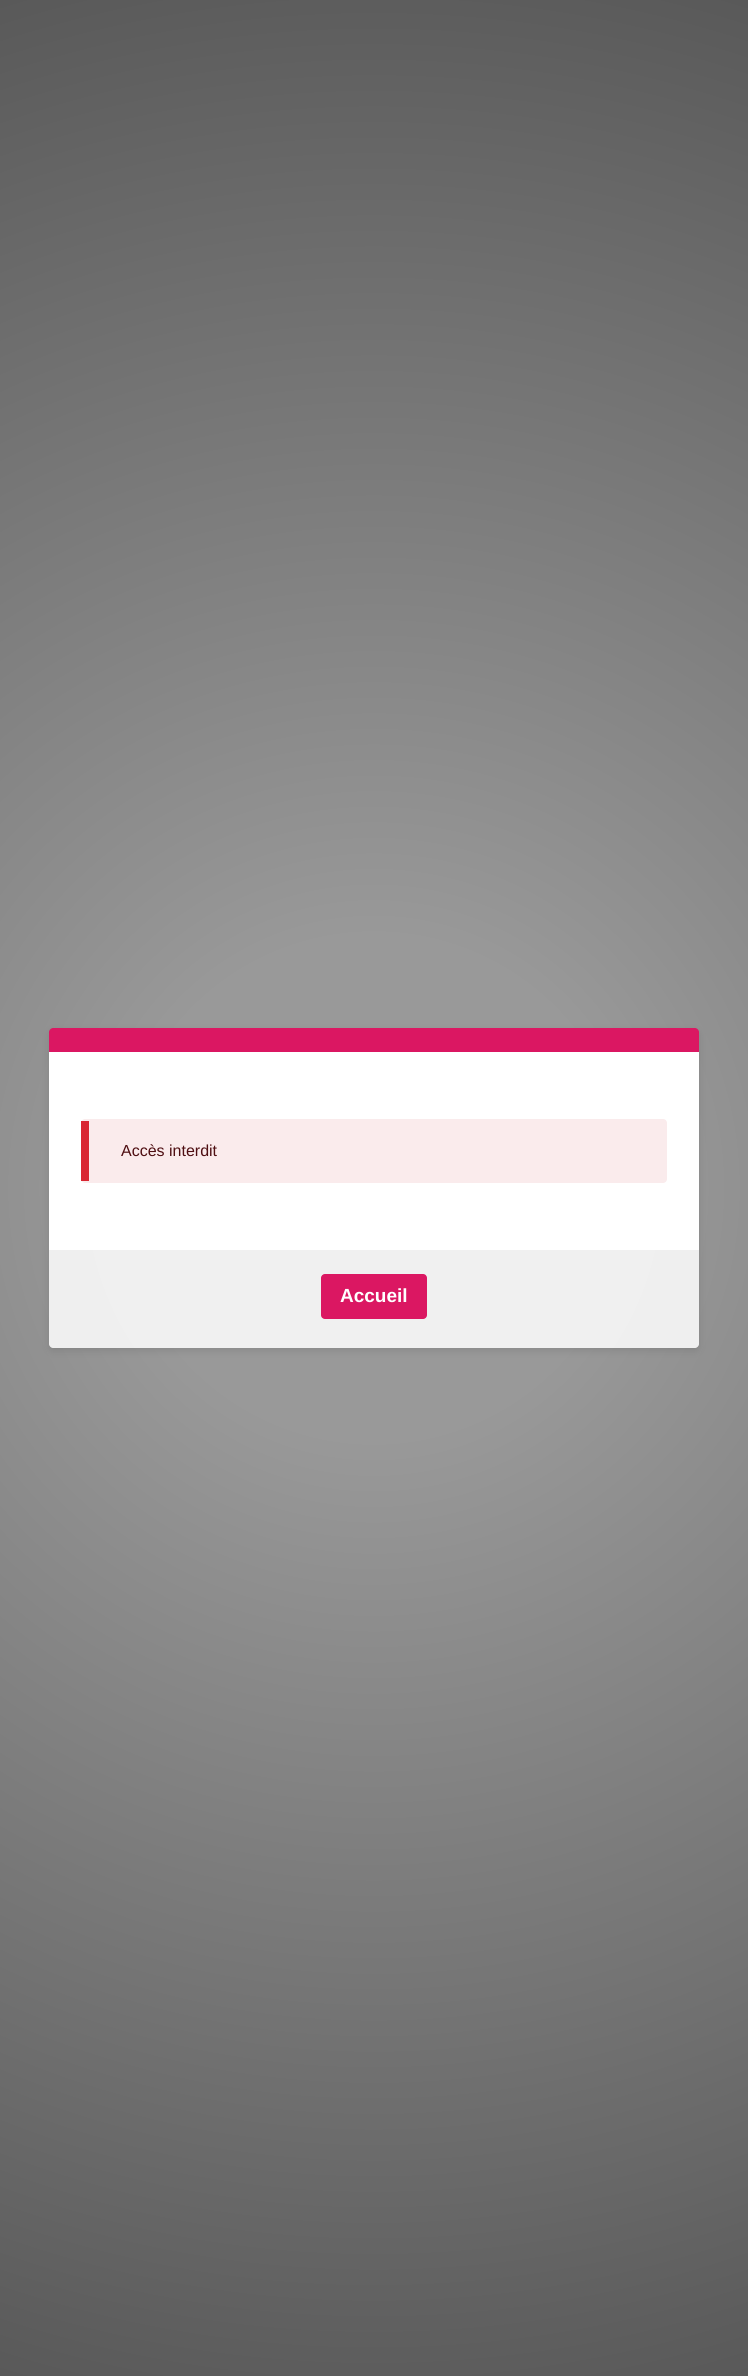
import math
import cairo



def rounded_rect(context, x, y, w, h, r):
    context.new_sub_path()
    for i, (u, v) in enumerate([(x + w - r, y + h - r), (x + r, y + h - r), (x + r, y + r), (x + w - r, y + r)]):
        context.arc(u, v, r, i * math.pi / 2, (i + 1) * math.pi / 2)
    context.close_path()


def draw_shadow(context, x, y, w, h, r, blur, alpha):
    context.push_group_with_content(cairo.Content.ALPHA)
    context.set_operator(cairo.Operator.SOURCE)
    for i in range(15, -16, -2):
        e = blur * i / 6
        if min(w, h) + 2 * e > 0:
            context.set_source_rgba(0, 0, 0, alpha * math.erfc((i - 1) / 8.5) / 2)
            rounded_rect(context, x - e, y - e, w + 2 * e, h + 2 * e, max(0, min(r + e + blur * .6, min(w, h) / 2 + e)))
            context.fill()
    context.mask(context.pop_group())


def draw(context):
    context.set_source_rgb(1, 1, 1)
    context.paint()
    gradient = cairo.RadialGradient(374, 1188, 0, 374, 1188, 1245)
    gradient.add_color_stop_rgba(0.2, 153 / 255, 153 / 255, 153 / 255, 1)
    gradient.add_color_stop_rgba(1, 89 / 255, 89 / 255, 89 / 255, 1)
    context.set_source(gradient)
    context.rectangle(0, 0, 748, 2376)
    context.fill()
    context.save()
    context.set_fill_rule(cairo.FillRule.EVEN_ODD)
    context.new_path()
    context.move_to(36, 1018)
    context.line_to(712, 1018)
    context.line_to(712, 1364)
    context.line_to(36, 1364)
    context.close_path()
    context.move_to(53, 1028)
    context.line_to(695, 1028)
    context.curve_to(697, 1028, 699, 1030, 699, 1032)
    context.line_to(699, 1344)
    context.curve_to(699, 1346, 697, 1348, 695, 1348)
    context.line_to(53, 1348)
    context.curve_to(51, 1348, 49, 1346, 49, 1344)
    context.line_to(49, 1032)
    context.curve_to(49, 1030, 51, 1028, 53, 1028)
    context.close_path()
    context.clip()
    context.set_source_rgb(0, 0, 0)
    draw_shadow(context, 49, 1031, 650, 320, 4, 4, 0.1)
    context.restore()
    context.set_source_rgb(219 / 255, 23 / 255, 98 / 255)
    context.new_path()
    context.move_to(53, 1028)
    context.line_to(695, 1028)
    context.curve_to(697, 1028, 699, 1030, 699, 1032)
    context.line_to(699, 1052)
    context.line_to(49, 1052)
    context.line_to(49, 1032)
    context.curve_to(49, 1030, 51, 1028, 53, 1028)
    context.close_path()
    context.fill()
    context.set_source_rgb(1, 1, 1)
    context.rectangle(49, 1052, 650, 198)
    context.fill()
    context.set_source_rgb(250 / 255, 235 / 255, 236 / 255)
    rounded_rect(context, 81, 1119, 586, 64, 4)
    context.fill()
    context.set_source_rgb(217 / 255, 38 / 255, 50 / 255)
    context.rectangle(81, 1121, 8, 60)
    context.fill()
    context.set_source_rgba(1, 1, 1, 0.85)
    context.new_path()
    context.move_to(49, 1250)
    context.line_to(699, 1250)
    context.line_to(699, 1344)
    context.curve_to(699, 1346, 697, 1348, 695, 1348)
    context.line_to(53, 1348)
    context.curve_to(51, 1348, 49, 1346, 49, 1344)
    context.close_path()
    context.fill()
    context.set_source_rgb(219 / 255, 23 / 255, 98 / 255)
    rounded_rect(context, 321, 1274, 106, 45, 4)
    context.fill()
    context.select_font_face("Liberation Sans")
    context.set_font_size(16)
    context.set_source_rgb(78 / 255, 14 / 255, 18 / 255)
    context.move_to(121, 1156)
    context.show_text("Accès interdit")
    context.select_font_face("Liberation Sans", cairo.FontSlant.NORMAL, cairo.FontWeight.BOLD)
    context.set_font_size(19)
    context.set_source_rgb(1, 1, 1)
    context.move_to(340, 1302)
    context.show_text("Accueil")


surface = cairo.ImageSurface(cairo.Format.RGB24, 748, 2376)
context = cairo.Context(surface)
options = cairo.FontOptions()
options.set_hint_metrics(cairo.HintMetrics.OFF)
options.set_hint_style(cairo.HintStyle.NONE)
context.set_font_options(options)
context.set_miter_limit(4)
draw(context)
surface.write_to_png("out.png")
